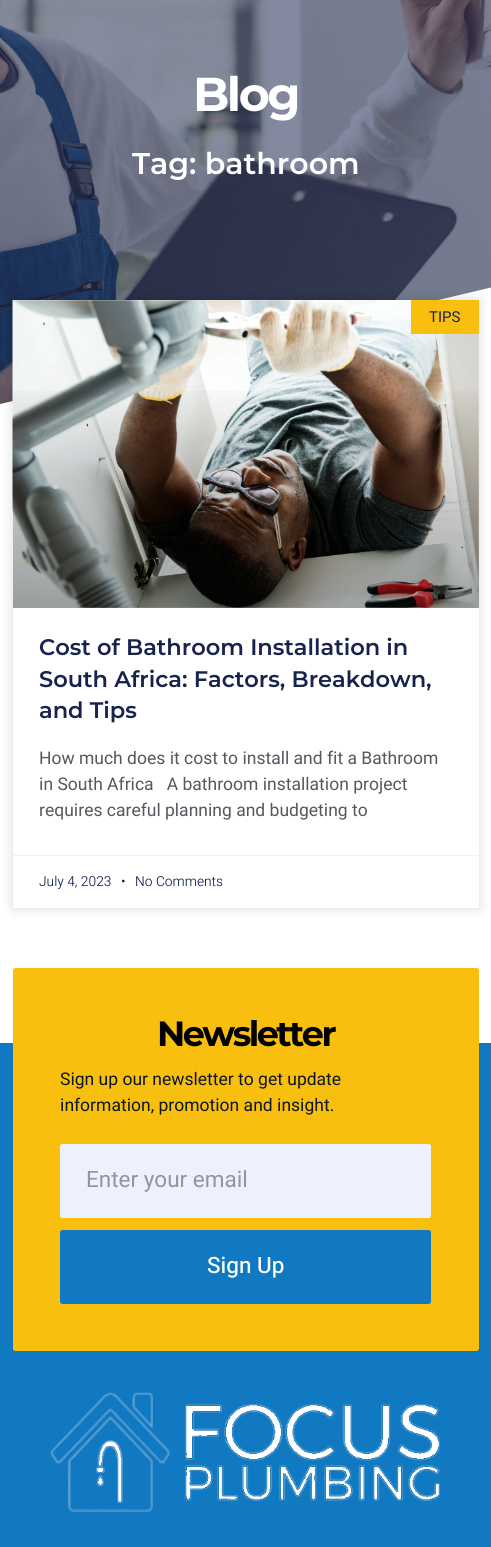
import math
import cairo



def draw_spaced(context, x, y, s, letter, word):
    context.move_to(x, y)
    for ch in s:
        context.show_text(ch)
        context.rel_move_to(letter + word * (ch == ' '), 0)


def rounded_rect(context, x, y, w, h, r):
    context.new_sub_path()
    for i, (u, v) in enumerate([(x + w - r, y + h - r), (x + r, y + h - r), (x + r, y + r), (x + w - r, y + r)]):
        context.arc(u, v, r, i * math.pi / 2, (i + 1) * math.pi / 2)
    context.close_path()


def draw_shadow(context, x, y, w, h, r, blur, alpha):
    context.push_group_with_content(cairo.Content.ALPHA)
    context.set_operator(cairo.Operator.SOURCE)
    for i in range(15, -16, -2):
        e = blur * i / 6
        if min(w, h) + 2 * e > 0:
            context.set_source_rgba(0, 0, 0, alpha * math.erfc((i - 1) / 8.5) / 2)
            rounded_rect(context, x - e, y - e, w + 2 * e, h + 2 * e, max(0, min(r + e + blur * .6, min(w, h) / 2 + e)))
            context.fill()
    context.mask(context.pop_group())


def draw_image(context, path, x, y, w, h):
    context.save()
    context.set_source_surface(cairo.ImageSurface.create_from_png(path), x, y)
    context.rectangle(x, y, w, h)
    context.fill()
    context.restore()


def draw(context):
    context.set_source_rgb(1, 1, 1)
    context.paint()
    context.set_source_rgb(23 / 255, 34 / 255, 77 / 255)
    context.rectangle(0, 0, 491, 404)
    context.fill()
    draw_image(context, "images/1.png", 0, 0, 491, 404)
    context.save()
    context.rectangle(0, 286, 491, 125)
    context.clip()
    context.set_source_rgb(1, 1, 1)
    context.new_path()
    context.move_to(0, 404)
    context.line_to(0, 412)
    context.line_to(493, 412)
    context.line_to(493, 287)
    context.close_path()
    context.fill()
    context.restore()
    context.set_source_rgb(0, 0, 0)
    draw_shadow(context, 13, 300, 466, 608, 0, 6, 0.15)
    context.set_source_rgb(1, 1, 1)
    context.rectangle(13, 300, 466, 608)
    context.fill()
    draw_image(context, "images/2.png", 12, 300, 467, 308)
    gradient = cairo.LinearGradient(246, 608, 246, 300)
    gradient.add_color_stop_rgba(0, 0, 0, 0, 0.35)
    gradient.add_color_stop_rgba(0.75, 0, 0, 0, 0)
    context.set_source(gradient)
    context.rectangle(13, 391, 466, 217)
    context.fill()
    context.set_source_rgb(249 / 255, 191 / 255, 15 / 255)
    context.rectangle(411, 300, 68, 34)
    context.fill()
    context.set_source_rgb(237 / 255, 241 / 255, 252 / 255)
    context.rectangle(13, 855, 466, 1)
    context.fill()
    gradient = cairo.LinearGradient(-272, 1314, 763, 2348)
    gradient.add_color_stop_rgba(0.6, 17 / 255, 121 / 255, 193 / 255, 1)
    gradient.add_color_stop_rgba(1, 129 / 255, 182 / 255, 215 / 255, 1)
    context.set_source(gradient)
    context.rectangle(0, 1043, 491, 504)
    context.fill()
    context.set_source_rgb(249 / 255, 191 / 255, 15 / 255)
    rounded_rect(context, 13, 968, 466, 383, 2.5)
    context.fill()
    context.set_source_rgb(237 / 255, 241 / 255, 252 / 255)
    rounded_rect(context, 60.5, 1144.5, 370, 73, 2)
    context.fill_preserve()
    context.set_line_width(1)
    context.stroke()
    context.set_source_rgb(17 / 255, 121 / 255, 193 / 255)
    rounded_rect(context, 60, 1230, 371, 74, 2.5)
    context.fill()
    draw_image(context, "images/3.png", 50, 1392, 391, 120)
    context.select_font_face("Montserrat", cairo.FontSlant.NORMAL, cairo.FontWeight.BOLD)
    context.set_font_size(47.5)
    context.set_source_rgb(1, 1, 1)
    draw_spaced(context, 193, 111, "Blog", -2.5, 0)
    context.select_font_face("Montserrat SemiBold")
    context.set_font_size(30)
    context.move_to(132, 174)
    context.show_text("Tag: bathroom")
    context.select_font_face("Heebo")
    context.set_font_size(15)
    context.set_source_rgb(23 / 255, 34 / 255, 77 / 255)
    context.move_to(429, 322)
    context.show_text("TIPS")
    context.select_font_face("Montserrat SemiBold")
    context.set_font_size(22.5)
    context.move_to(39, 655)
    context.show_text("Cost of Bathroom Installation in")
    context.move_to(39, 687)
    context.show_text("South Africa: Factors, Breakdown,")
    context.move_to(39, 718)
    context.show_text("and Tips")
    context.select_font_face("Heebo")
    context.set_font_size(17.5)
    context.set_source_rgb(84 / 255, 89 / 255, 95 / 255)
    context.move_to(39, 764)
    context.show_text("How much does it cost to install and fit a Bathroom")
    context.move_to(39, 790)
    context.show_text("in South Africa   A bathroom installation project")
    context.move_to(39, 816)
    context.show_text("requires careful planning and budgeting to")
    context.select_font_face("Heebo Light")
    context.set_font_size(13.75)
    context.set_source_rgb(23 / 255, 34 / 255, 77 / 255)
    context.move_to(39, 886)
    context.show_text("July 4, 2023")
    context.move_to(121, 886)
    context.show_text("•")
    context.move_to(135, 886)
    context.show_text("No Comments")
    context.select_font_face("Montserrat", cairo.FontSlant.NORMAL, cairo.FontWeight.BOLD)
    context.set_font_size(35)
    context.set_source_rgb(0, 0, 0)
    draw_spaced(context, 157, 1046, "Newsletter", -2.5, 0)
    context.select_font_face("Heebo")
    context.set_font_size(17.5)
    context.set_source_rgb(13 / 255, 23 / 255, 30 / 255)
    context.move_to(60, 1085)
    context.show_text("Sign up our newsletter to get update")
    context.move_to(60, 1111)
    context.show_text("information, promotion and insight.")
    context.set_font_size(22.5)
    context.set_source_rgb(145 / 255, 150 / 255, 158 / 255)
    context.move_to(86, 1187)
    context.show_text("Enter your email")
    context.select_font_face("Heebo Medium")
    context.set_source_rgb(1, 1, 1)
    context.move_to(207, 1273)
    context.show_text("Sign Up")


surface = cairo.ImageSurface(cairo.Format.RGB24, 491, 1547)
context = cairo.Context(surface)
options = cairo.FontOptions()
options.set_hint_metrics(cairo.HintMetrics.OFF)
options.set_hint_style(cairo.HintStyle.NONE)
context.set_font_options(options)
context.set_miter_limit(4)
draw(context)
surface.write_to_png("out.png")
